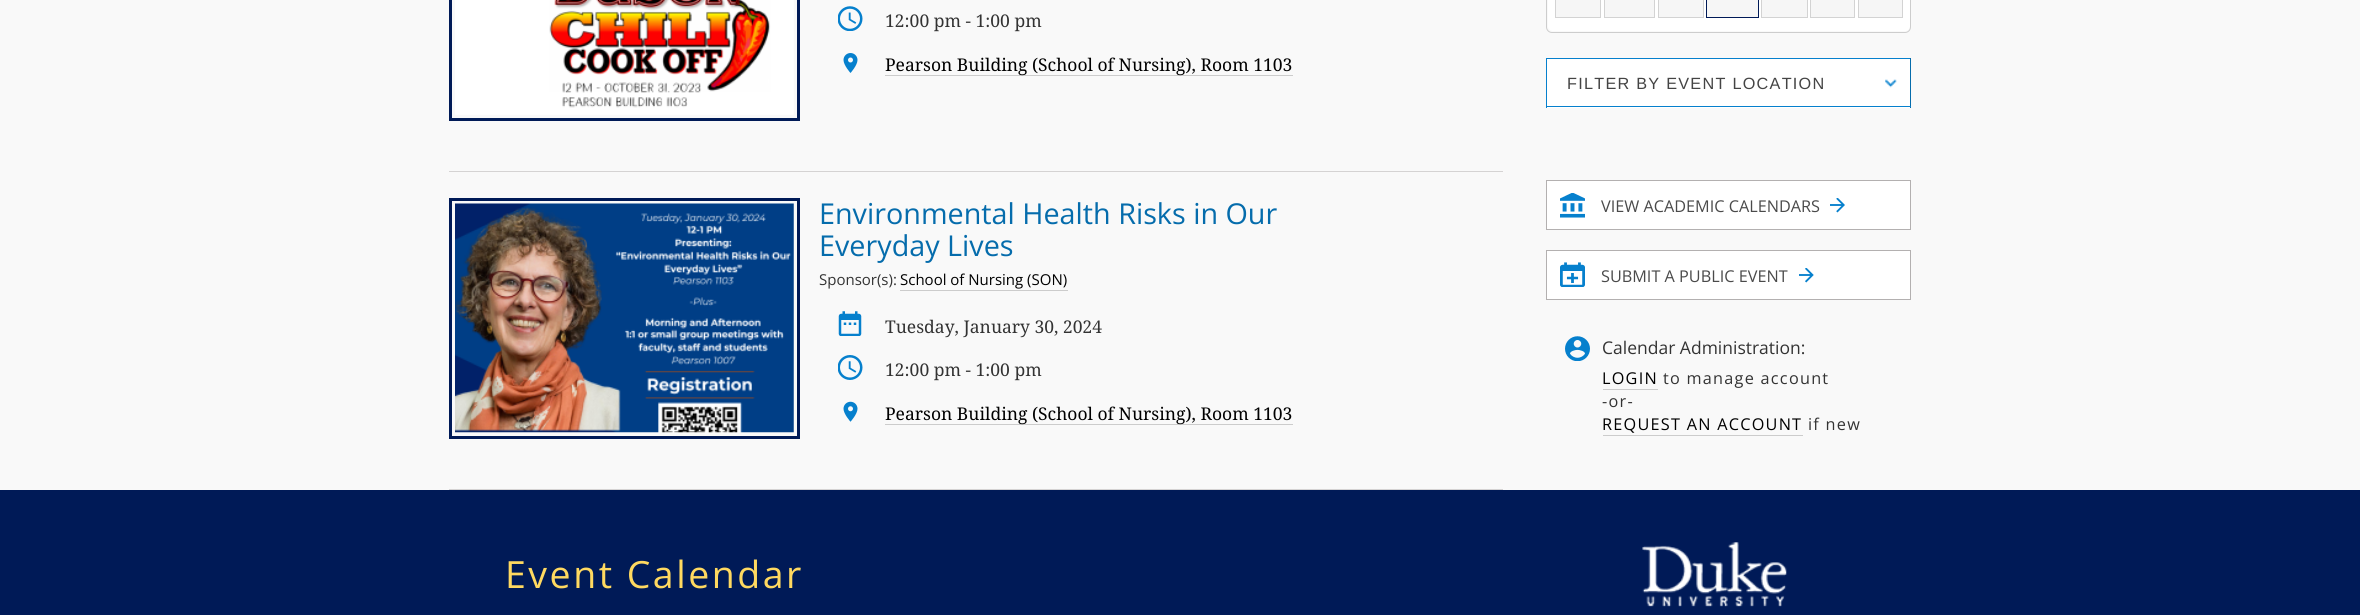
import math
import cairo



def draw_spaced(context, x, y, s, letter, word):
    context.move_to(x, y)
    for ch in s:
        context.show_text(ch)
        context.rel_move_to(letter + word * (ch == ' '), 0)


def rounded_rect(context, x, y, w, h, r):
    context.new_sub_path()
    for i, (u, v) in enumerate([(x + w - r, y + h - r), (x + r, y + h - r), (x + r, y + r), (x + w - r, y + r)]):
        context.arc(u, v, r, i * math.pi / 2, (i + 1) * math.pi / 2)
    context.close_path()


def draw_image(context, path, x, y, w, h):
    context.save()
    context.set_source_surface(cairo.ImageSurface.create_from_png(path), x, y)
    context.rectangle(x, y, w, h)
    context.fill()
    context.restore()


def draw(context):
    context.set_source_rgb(249 / 255, 249 / 255, 249 / 255)
    context.paint()
    context.set_source_rgb(213 / 255, 211 / 255, 211 / 255)
    context.rectangle(449, 171, 1054, 1)
    context.fill()
    context.rectangle(450.5, -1.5, 348, 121)
    context.set_source_rgb(0, 26 / 255, 87 / 255)
    context.set_line_width(3)
    context.stroke()
    draw_image(context, "images/1.png", 455, 0, 339, 115)
    draw_image(context, "images/2.png", 838, 6, 25, 25)
    draw_image(context, "images/3.png", 843, 53, 15, 20)
    context.set_source_rgb(204 / 255, 204 / 255, 204 / 255)
    context.rectangle(885, 75, 408, 1)
    context.fill()
    context.set_source_rgb(213 / 255, 211 / 255, 211 / 255)
    context.rectangle(449, 489, 1054, 1)
    context.fill()
    context.rectangle(450.5, 199.5, 348, 238)
    context.set_source_rgb(0, 26 / 255, 87 / 255)
    context.stroke()
    draw_image(context, "images/4.png", 455, 203, 339, 230)
    context.set_source_rgb(204 / 255, 204 / 255, 204 / 255)
    context.rectangle(900, 290, 168, 1)
    context.fill()
    draw_image(context, "images/5.png", 838, 311, 24, 25)
    draw_image(context, "images/6.png", 838, 355, 25, 25)
    draw_image(context, "images/7.png", 843, 401, 15, 21)
    context.rectangle(885, 424, 408, 1)
    context.fill()
    context.set_source_rgb(1, 1, 1)
    rounded_rect(context, 1548, -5, 362, 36, 5)
    context.fill()
    rounded_rect(context, 1546.5, -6.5, 364, 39, 5.5)
    context.set_source_rgb(205 / 255, 205 / 255, 205 / 255)
    context.set_line_width(1)
    context.stroke()
    context.set_source_rgb(246 / 255, 246 / 255, 246 / 255)
    context.rectangle(1555.5, -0.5, 45, 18)
    context.fill_preserve()
    context.set_source_rgb(211 / 255, 211 / 255, 211 / 255)
    context.stroke()
    context.set_source_rgb(246 / 255, 246 / 255, 246 / 255)
    context.rectangle(1604.5, -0.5, 50, 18)
    context.fill_preserve()
    context.set_source_rgb(211 / 255, 211 / 255, 211 / 255)
    context.stroke()
    context.set_source_rgb(246 / 255, 246 / 255, 246 / 255)
    context.rectangle(1658.5, -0.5, 45, 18)
    context.fill_preserve()
    context.set_source_rgb(211 / 255, 211 / 255, 211 / 255)
    context.stroke()
    context.set_source_rgb(246 / 255, 246 / 255, 246 / 255)
    context.rectangle(1706.5, -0.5, 52, 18)
    context.fill_preserve()
    context.set_source_rgb(0, 26 / 255, 87 / 255)
    context.stroke()
    context.set_source_rgb(246 / 255, 246 / 255, 246 / 255)
    context.rectangle(1761.5, -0.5, 46, 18)
    context.fill_preserve()
    context.set_source_rgb(211 / 255, 211 / 255, 211 / 255)
    context.stroke()
    context.set_source_rgb(246 / 255, 246 / 255, 246 / 255)
    context.rectangle(1810.5, -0.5, 44, 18)
    context.fill_preserve()
    context.set_source_rgb(211 / 255, 211 / 255, 211 / 255)
    context.stroke()
    context.set_source_rgb(246 / 255, 246 / 255, 246 / 255)
    context.rectangle(1858.5, -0.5, 44, 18)
    context.fill_preserve()
    context.set_source_rgb(211 / 255, 211 / 255, 211 / 255)
    context.stroke()
    context.set_source_rgb(1, 1, 1)
    context.rectangle(1547, 59, 363, 49)
    context.fill()
    context.set_source_rgb(6 / 255, 128 / 255, 205 / 255)
    context.rectangle(1546, 58, 365, 1)
    context.fill()
    context.set_source_rgb(5 / 255, 108 / 255, 172 / 255)
    context.rectangle(1910, 58, 1, 50)
    context.fill()
    context.set_source_rgb(6 / 255, 128 / 255, 205 / 255)
    context.rectangle(1546, 106, 365, 1)
    context.fill()
    context.rectangle(1546, 58, 1, 50)
    context.fill()
    draw_image(context, "images/8.png", 1885, 79, 12, 9)
    context.set_source_rgb(1, 1, 1)
    context.rectangle(1546.5, 180.5, 364, 49)
    context.fill_preserve()
    context.set_source_rgb(179 / 255, 176 / 255, 176 / 255)
    context.stroke()
    draw_image(context, "images/9.png", 1560, 193, 25, 25)
    draw_image(context, "images/10.png", 1830, 198, 15, 15)
    context.set_source_rgb(1, 1, 1)
    context.rectangle(1546.5, 250.5, 364, 49)
    context.fill_preserve()
    context.set_source_rgb(179 / 255, 176 / 255, 176 / 255)
    context.stroke()
    draw_image(context, "images/11.png", 1560, 262, 25, 25)
    draw_image(context, "images/12.png", 1799, 268, 15, 15)
    draw_image(context, "images/13.png", 1565, 336, 25, 25)
    context.set_source_rgb(204 / 255, 204 / 255, 204 / 255)
    context.rectangle(1603, 389, 55, 1)
    context.fill()
    context.rectangle(1603, 435, 200, 1)
    context.fill()
    context.set_source_rgb(0, 26 / 255, 87 / 255)
    context.rectangle(0, 490, 2360, 125)
    context.fill()
    draw_image(context, "images/14.png", 1642, 542, 145, 65)
    context.select_font_face("Droid Serif")
    context.set_font_size(17.5)
    context.set_source_rgb(51 / 255, 51 / 255, 51 / 255)
    context.move_to(885, 27)
    context.show_text("12:00 pm - 1:00 pm")
    context.set_source_rgb(0, 0, 0)
    context.move_to(885, 71)
    context.show_text("Pearson Building (School of Nursing), Room 1103")
    context.select_font_face("Open Sans")
    context.set_font_size(28.75)
    context.set_source_rgb(5 / 255, 108 / 255, 172 / 255)
    context.move_to(819, 224)
    context.show_text("Environmental Health Risks in Our")
    context.move_to(819, 256)
    context.show_text("Everyday Lives")
    context.set_font_size(15)
    context.set_source_rgb(51 / 255, 51 / 255, 51 / 255)
    context.move_to(819, 285)
    context.show_text("Sponsor(s):")
    context.set_source_rgb(0, 0, 0)
    context.move_to(900, 285)
    context.show_text("School of Nursing (SON)")
    context.select_font_face("Droid Serif")
    context.set_font_size(17.5)
    context.set_source_rgb(51 / 255, 51 / 255, 51 / 255)
    context.move_to(885, 333)
    context.show_text("Tuesday, January 30, 2024")
    context.move_to(885, 376)
    context.show_text("12:00 pm - 1:00 pm")
    context.set_source_rgb(0, 0, 0)
    context.move_to(885, 420)
    context.show_text("Pearson Building (School of Nursing), Room 1103")
    context.select_font_face("Liberation Sans")
    context.set_font_size(16.25)
    context.set_source_rgb(68 / 255, 68 / 255, 68 / 255)
    draw_spaced(context, 1567, 89, "FILTER BY EVENT LOCATION", 1.25, 0)
    context.select_font_face("Open Sans")
    context.set_source_rgb(74 / 255, 74 / 255, 74 / 255)
    context.move_to(1601, 212)
    context.show_text("VIEW ACADEMIC CALENDARS")
    context.move_to(1601, 282)
    context.show_text("SUBMIT A PUBLIC EVENT")
    context.set_font_size(17.5)
    context.set_source_rgb(51 / 255, 51 / 255, 51 / 255)
    context.move_to(1602, 354)
    context.show_text("Calendar Administration:")
    context.set_font_size(16.25)
    context.set_source_rgb(0, 0, 0)
    draw_spaced(context, 1602, 384, "LOGIN", 1.25, 0)
    context.set_source_rgb(51 / 255, 51 / 255, 51 / 255)
    draw_spaced(context, 1663, 384, "to manage account", 1.25, 0)
    draw_spaced(context, 1602, 407, "-or-", 1.25, 0)
    context.set_source_rgb(0, 0, 0)
    draw_spaced(context, 1602, 430, "REQUEST AN ACCOUNT", 1.25, 0)
    context.set_source_rgb(51 / 255, 51 / 255, 51 / 255)
    draw_spaced(context, 1808, 430, "if new", 1.25, 0)
    context.set_font_size(37.5)
    context.set_source_rgb(1, 217 / 255, 96 / 255)
    draw_spaced(context, 505, 588, "Event Calendar", 2.5, 0)


surface = cairo.ImageSurface(cairo.Format.RGB24, 2360, 615)
context = cairo.Context(surface)
options = cairo.FontOptions()
options.set_hint_metrics(cairo.HintMetrics.OFF)
options.set_hint_style(cairo.HintStyle.NONE)
context.set_font_options(options)
context.set_miter_limit(4)
draw(context)
surface.write_to_png("out.png")
